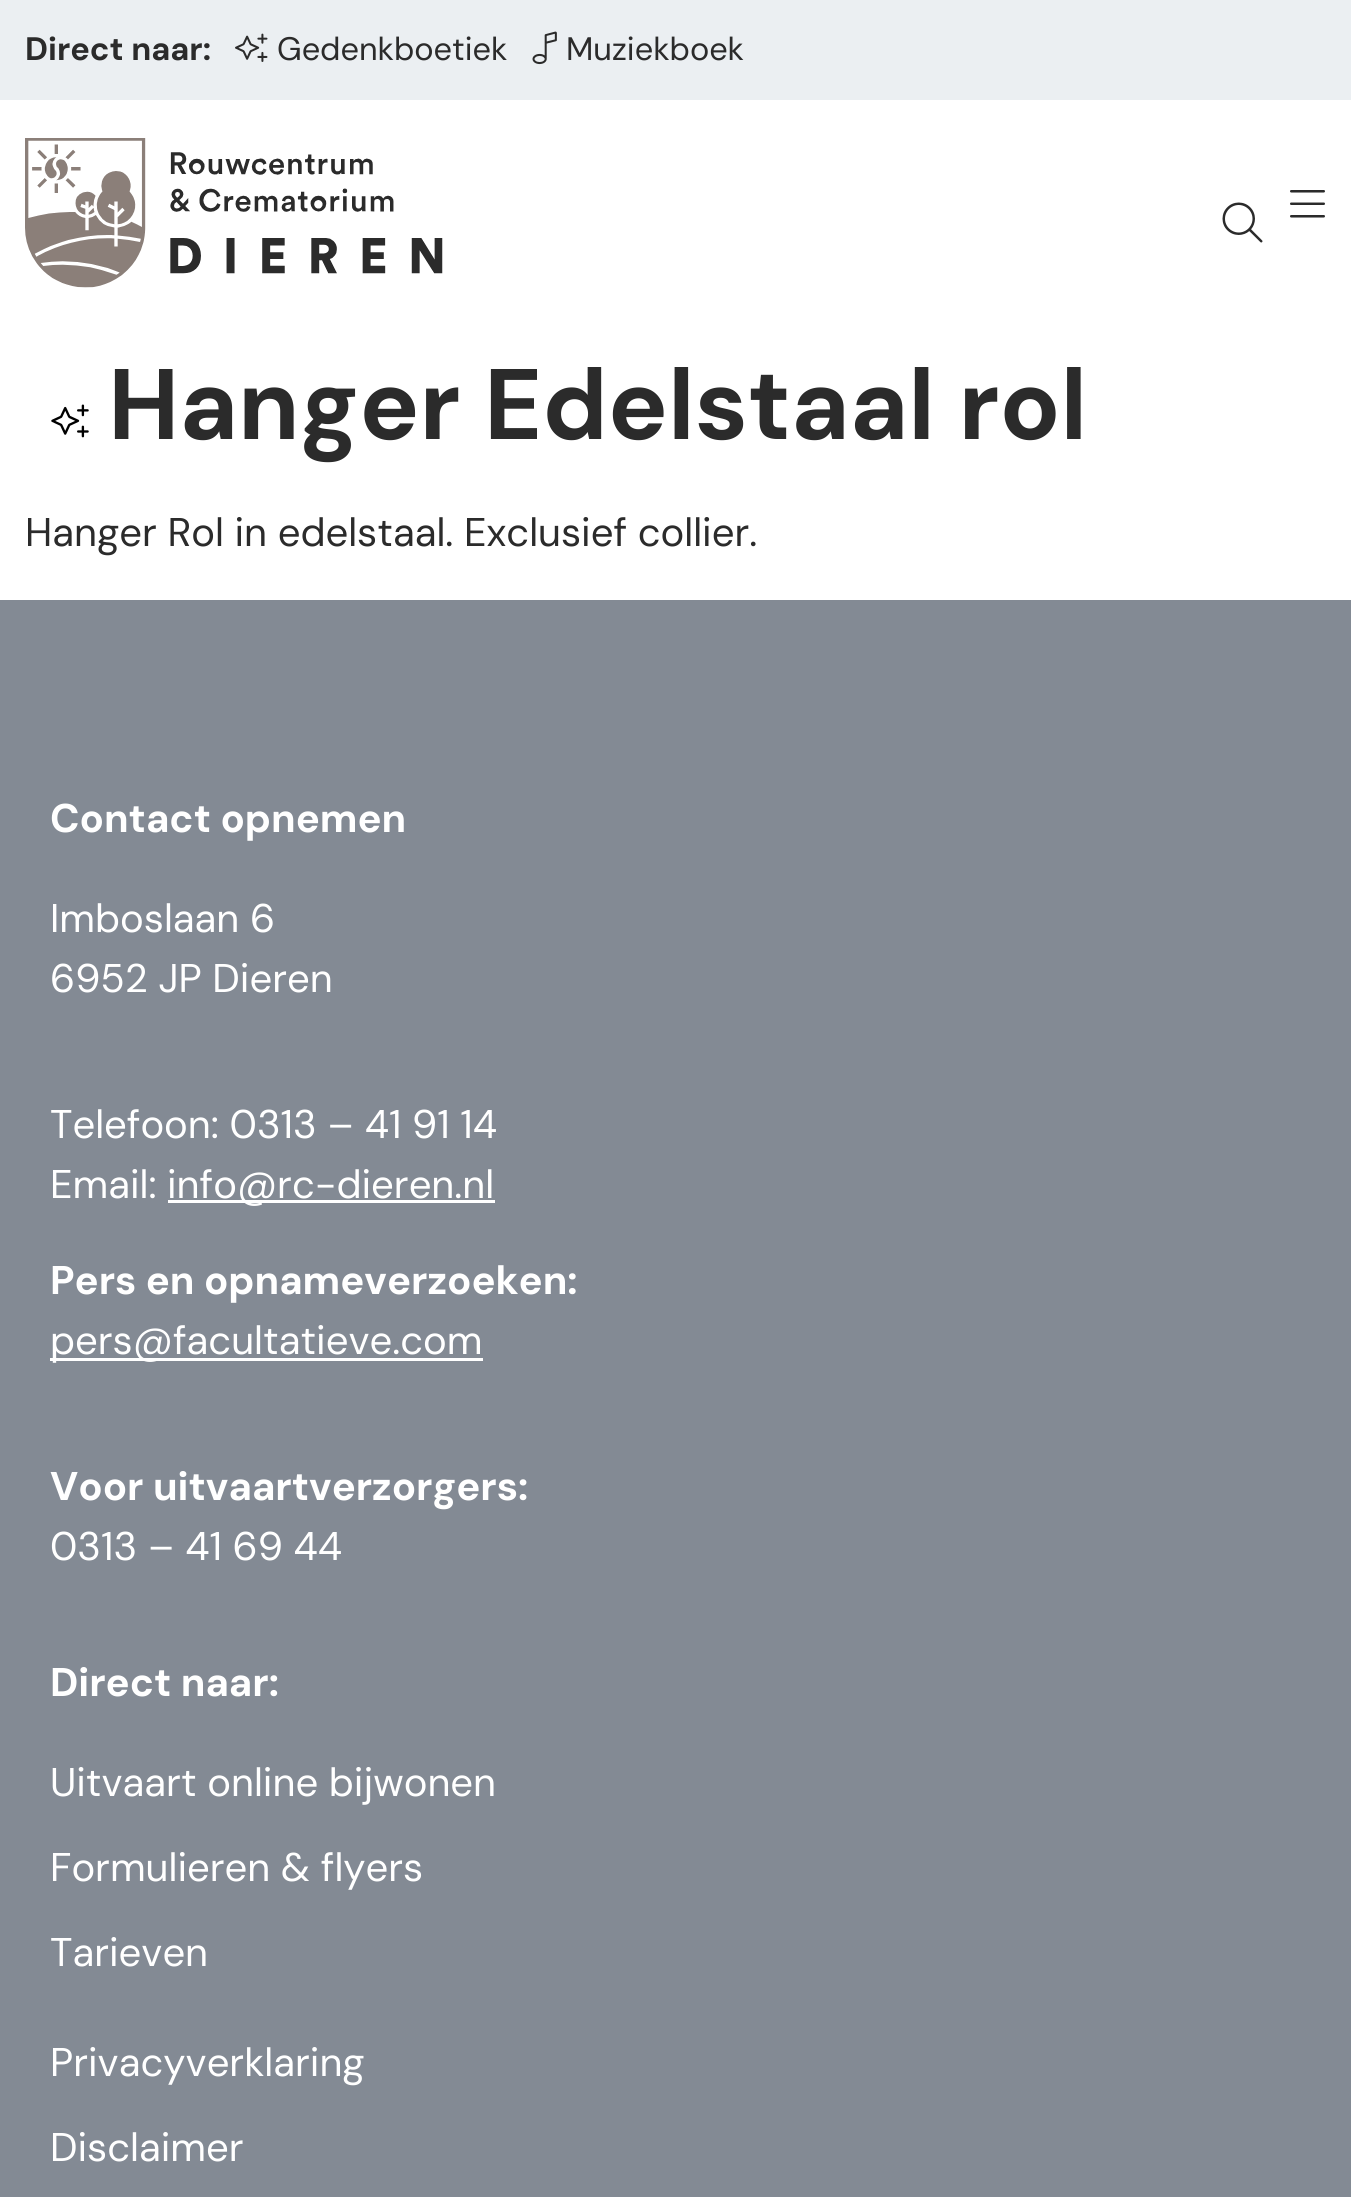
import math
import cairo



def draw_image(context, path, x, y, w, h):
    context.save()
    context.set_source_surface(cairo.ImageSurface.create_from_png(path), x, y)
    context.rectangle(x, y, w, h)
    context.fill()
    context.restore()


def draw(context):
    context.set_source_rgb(1, 1, 1)
    context.paint()
    context.set_source_rgb(235 / 255, 239 / 255, 242 / 255)
    context.rectangle(0, 0, 1351, 100)
    context.fill()
    draw_image(context, "images/1.png", 235, 33, 33, 29)
    draw_image(context, "images/2.png", 532, 31, 25, 34)
    draw_image(context, "images/3.png", 25, 138, 418, 150)
    draw_image(context, "images/4.png", 1222, 202, 41, 41)
    draw_image(context, "images/5.png", 1290, 190, 35, 28)
    draw_image(context, "images/6.png", 51, 404, 38, 34)
    context.set_source_rgb(131 / 255, 138 / 255, 148 / 255)
    context.rectangle(0, 600, 1351, 1597)
    context.fill()
    context.set_source_rgb(1, 1, 1)
    context.rectangle(168, 1200, 327, 3)
    context.fill()
    context.rectangle(50, 1358, 433, 3)
    context.fill()
    context.select_font_face("DM Sans", cairo.FontSlant.NORMAL, cairo.FontWeight.BOLD)
    context.set_font_size(32.5)
    context.set_source_rgb(43 / 255, 43 / 255, 43 / 255)
    context.move_to(25, 60)
    context.show_text("Direct naar:")
    context.select_font_face("DM Sans")
    context.move_to(277, 60)
    context.show_text("Gedenkboetiek")
    context.move_to(566, 60)
    context.show_text("Muziekboek")
    context.select_font_face("DM Sans", cairo.FontSlant.NORMAL, cairo.FontWeight.BOLD)
    context.set_font_size(100)
    context.move_to(108, 439)
    context.show_text("Hanger Edelstaal rol")
    context.select_font_face("DM Sans")
    context.set_font_size(40)
    context.move_to(25, 546)
    context.show_text("Hanger Rol in edelstaal. Exclusief collier.")
    context.select_font_face("DM Sans", cairo.FontSlant.NORMAL, cairo.FontWeight.BOLD)
    context.set_source_rgb(1, 1, 1)
    context.move_to(50, 832)
    context.show_text("Contact opnemen")
    context.select_font_face("DM Sans")
    context.move_to(50, 932)
    context.show_text("Imboslaan 6")
    context.move_to(50, 992)
    context.show_text("6952 JP Dieren")
    context.move_to(50, 1138)
    context.show_text("Telefoon: 0313 – 41 91 14")
    context.move_to(50, 1198)
    context.show_text("Email:")
    context.move_to(167, 1198)
    context.show_text("info@rc-dieren.nl")
    context.select_font_face("DM Sans", cairo.FontSlant.NORMAL, cairo.FontWeight.BOLD)
    context.move_to(50, 1294)
    context.show_text("Pers en opnameverzoeken:")
    context.select_font_face("DM Sans")
    context.move_to(50, 1354)
    context.show_text("pers@facultatieve.com")
    context.select_font_face("DM Sans", cairo.FontSlant.NORMAL, cairo.FontWeight.BOLD)
    context.move_to(50, 1500)
    context.show_text("Voor uitvaartverzorgers:")
    context.select_font_face("DM Sans")
    context.move_to(50, 1560)
    context.show_text("0313 – 41 69 44")
    context.select_font_face("DM Sans", cairo.FontSlant.NORMAL, cairo.FontWeight.BOLD)
    context.move_to(50, 1696)
    context.show_text("Direct naar:")
    context.select_font_face("DM Sans")
    context.move_to(50, 1796)
    context.show_text("Uitvaart online bijwonen")
    context.move_to(50, 1881)
    context.show_text("Formulieren & flyers")
    context.move_to(50, 1966)
    context.show_text("Tarieven")
    context.move_to(50, 2076)
    context.show_text("Privacyverklaring")
    context.move_to(50, 2161)
    context.show_text("Disclaimer")


surface = cairo.ImageSurface(cairo.Format.RGB24, 1351, 2197)
context = cairo.Context(surface)
options = cairo.FontOptions()
options.set_hint_metrics(cairo.HintMetrics.OFF)
options.set_hint_style(cairo.HintStyle.NONE)
context.set_font_options(options)
context.set_miter_limit(4)
draw(context)
surface.write_to_png("out.png")
